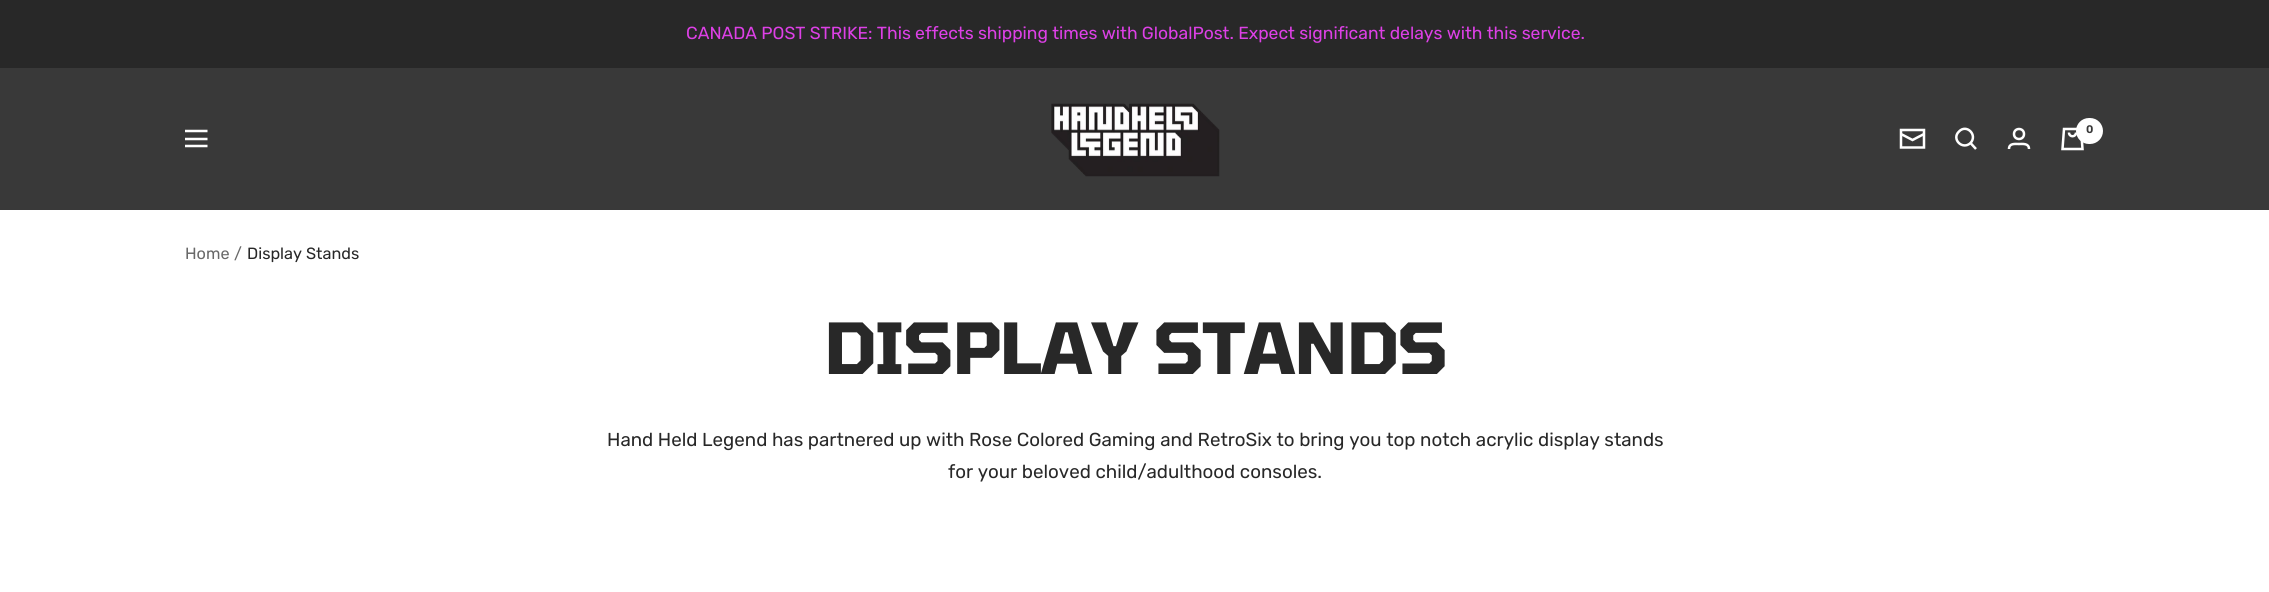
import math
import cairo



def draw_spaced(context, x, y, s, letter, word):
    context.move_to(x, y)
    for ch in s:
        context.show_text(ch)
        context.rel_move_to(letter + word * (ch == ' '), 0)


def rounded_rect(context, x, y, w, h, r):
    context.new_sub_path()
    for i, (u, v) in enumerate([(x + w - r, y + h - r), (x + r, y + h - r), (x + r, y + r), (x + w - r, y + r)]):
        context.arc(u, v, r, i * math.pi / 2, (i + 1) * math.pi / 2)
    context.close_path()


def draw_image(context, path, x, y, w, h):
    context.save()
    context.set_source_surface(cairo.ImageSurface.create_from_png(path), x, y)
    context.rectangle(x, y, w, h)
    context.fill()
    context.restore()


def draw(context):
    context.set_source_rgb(1, 1, 1)
    context.paint()
    context.set_source_rgb(40 / 255, 40 / 255, 40 / 255)
    context.rectangle(0, 0, 2269, 68)
    context.fill()
    context.set_source_rgb(57 / 255, 57 / 255, 57 / 255)
    context.rectangle(0, 68, 2269, 142)
    context.fill()
    context.new_path()
    context.move_to(185, 131)
    context.line_to(207.5, 131)
    context.move_to(185, 146)
    context.line_to(207.5, 146)
    context.close_path()
    context.move_to(185, 139)
    context.line_to(207.5, 139)
    context.close_path()
    context.set_source_rgb(1, 1, 1)
    context.set_line_width(2.5)
    context.stroke()
    draw_image(context, "images/1.png", 1051, 103, 169, 74)
    context.new_path()
    context.move_to(1924, 134)
    context.line_to(1912.5, 140)
    context.line_to(1901, 134)
    context.move_to(1901, 130)
    context.line_to(1924, 130)
    context.line_to(1924, 147.5)
    context.line_to(1901, 147.5)
    context.close_path()
    context.stroke()
    context.new_path()
    context.move_to(1970.5, 143)
    context.curve_to(1978, 135, 1966.5, 123.5, 1959, 131.5)
    context.curve_to(1951, 139, 1962.5, 150.5, 1970.5, 143)
    context.close_path()
    context.move_to(1970.5, 143)
    context.line_to(1976, 149)
    context.stroke()
    context.arc(2019, 134, 5, 0, 2 * math.pi)
    context.stroke()
    context.new_path()
    context.move_to(2009, 149)
    context.curve_to(2009, 143, 2015, 144, 2019, 144)
    context.curve_to(2022.5, 144, 2029, 143, 2029, 149)
    context.stroke()
    context.new_path()
    context.move_to(2064, 129)
    context.line_to(2081, 129)
    context.line_to(2082.5, 149)
    context.line_to(2062.5, 149)
    context.close_path()
    context.move_to(2069, 132.5)
    context.curve_to(2069, 137.5, 2076, 137.5, 2076, 132.5)
    context.stroke()
    rounded_rect(context, 2076, 118, 27, 26, 13)
    context.fill()
    context.select_font_face("Rubik")
    context.set_font_size(17.5)
    context.set_source_rgb(221 / 255, 64 / 255, 230 / 255)
    context.move_to(686, 39)
    context.show_text("CANADA POST STRIKE: This effects shipping times with GlobalPost. Expect significant delays with this service.")
    context.select_font_face("Rubik SemiBold")
    context.set_font_size(11)
    context.set_source_rgb(57 / 255, 57 / 255, 57 / 255)
    context.move_to(2086, 133)
    context.show_text("0")
    context.select_font_face("Rubik")
    context.set_font_size(16.25)
    context.set_source_rgb(105 / 255, 105 / 255, 105 / 255)
    context.move_to(185, 259)
    context.show_text("Home")
    context.move_to(234, 259)
    context.show_text("/")
    context.set_source_rgb(40 / 255, 40 / 255, 40 / 255)
    context.move_to(247, 259)
    context.show_text("Display Stands")
    context.select_font_face("Tomorrow", cairo.FontSlant.NORMAL, cairo.FontWeight.BOLD)
    context.set_font_size(70)
    draw_spaced(context, 824, 374, "DISPLAY STANDS", -1.25, 0)
    context.select_font_face("Rubik")
    context.set_font_size(18.75)
    context.move_to(607, 446)
    context.show_text("Hand Held Legend has partnered up with Rose Colored Gaming and RetroSix to bring you top notch acrylic display stands")
    context.move_to(948, 478)
    context.show_text("for your beloved child/adulthood consoles.")


surface = cairo.ImageSurface(cairo.Format.RGB24, 2269, 592)
context = cairo.Context(surface)
options = cairo.FontOptions()
options.set_hint_metrics(cairo.HintMetrics.OFF)
options.set_hint_style(cairo.HintStyle.NONE)
context.set_font_options(options)
context.set_miter_limit(4)
draw(context)
surface.write_to_png("out.png")
